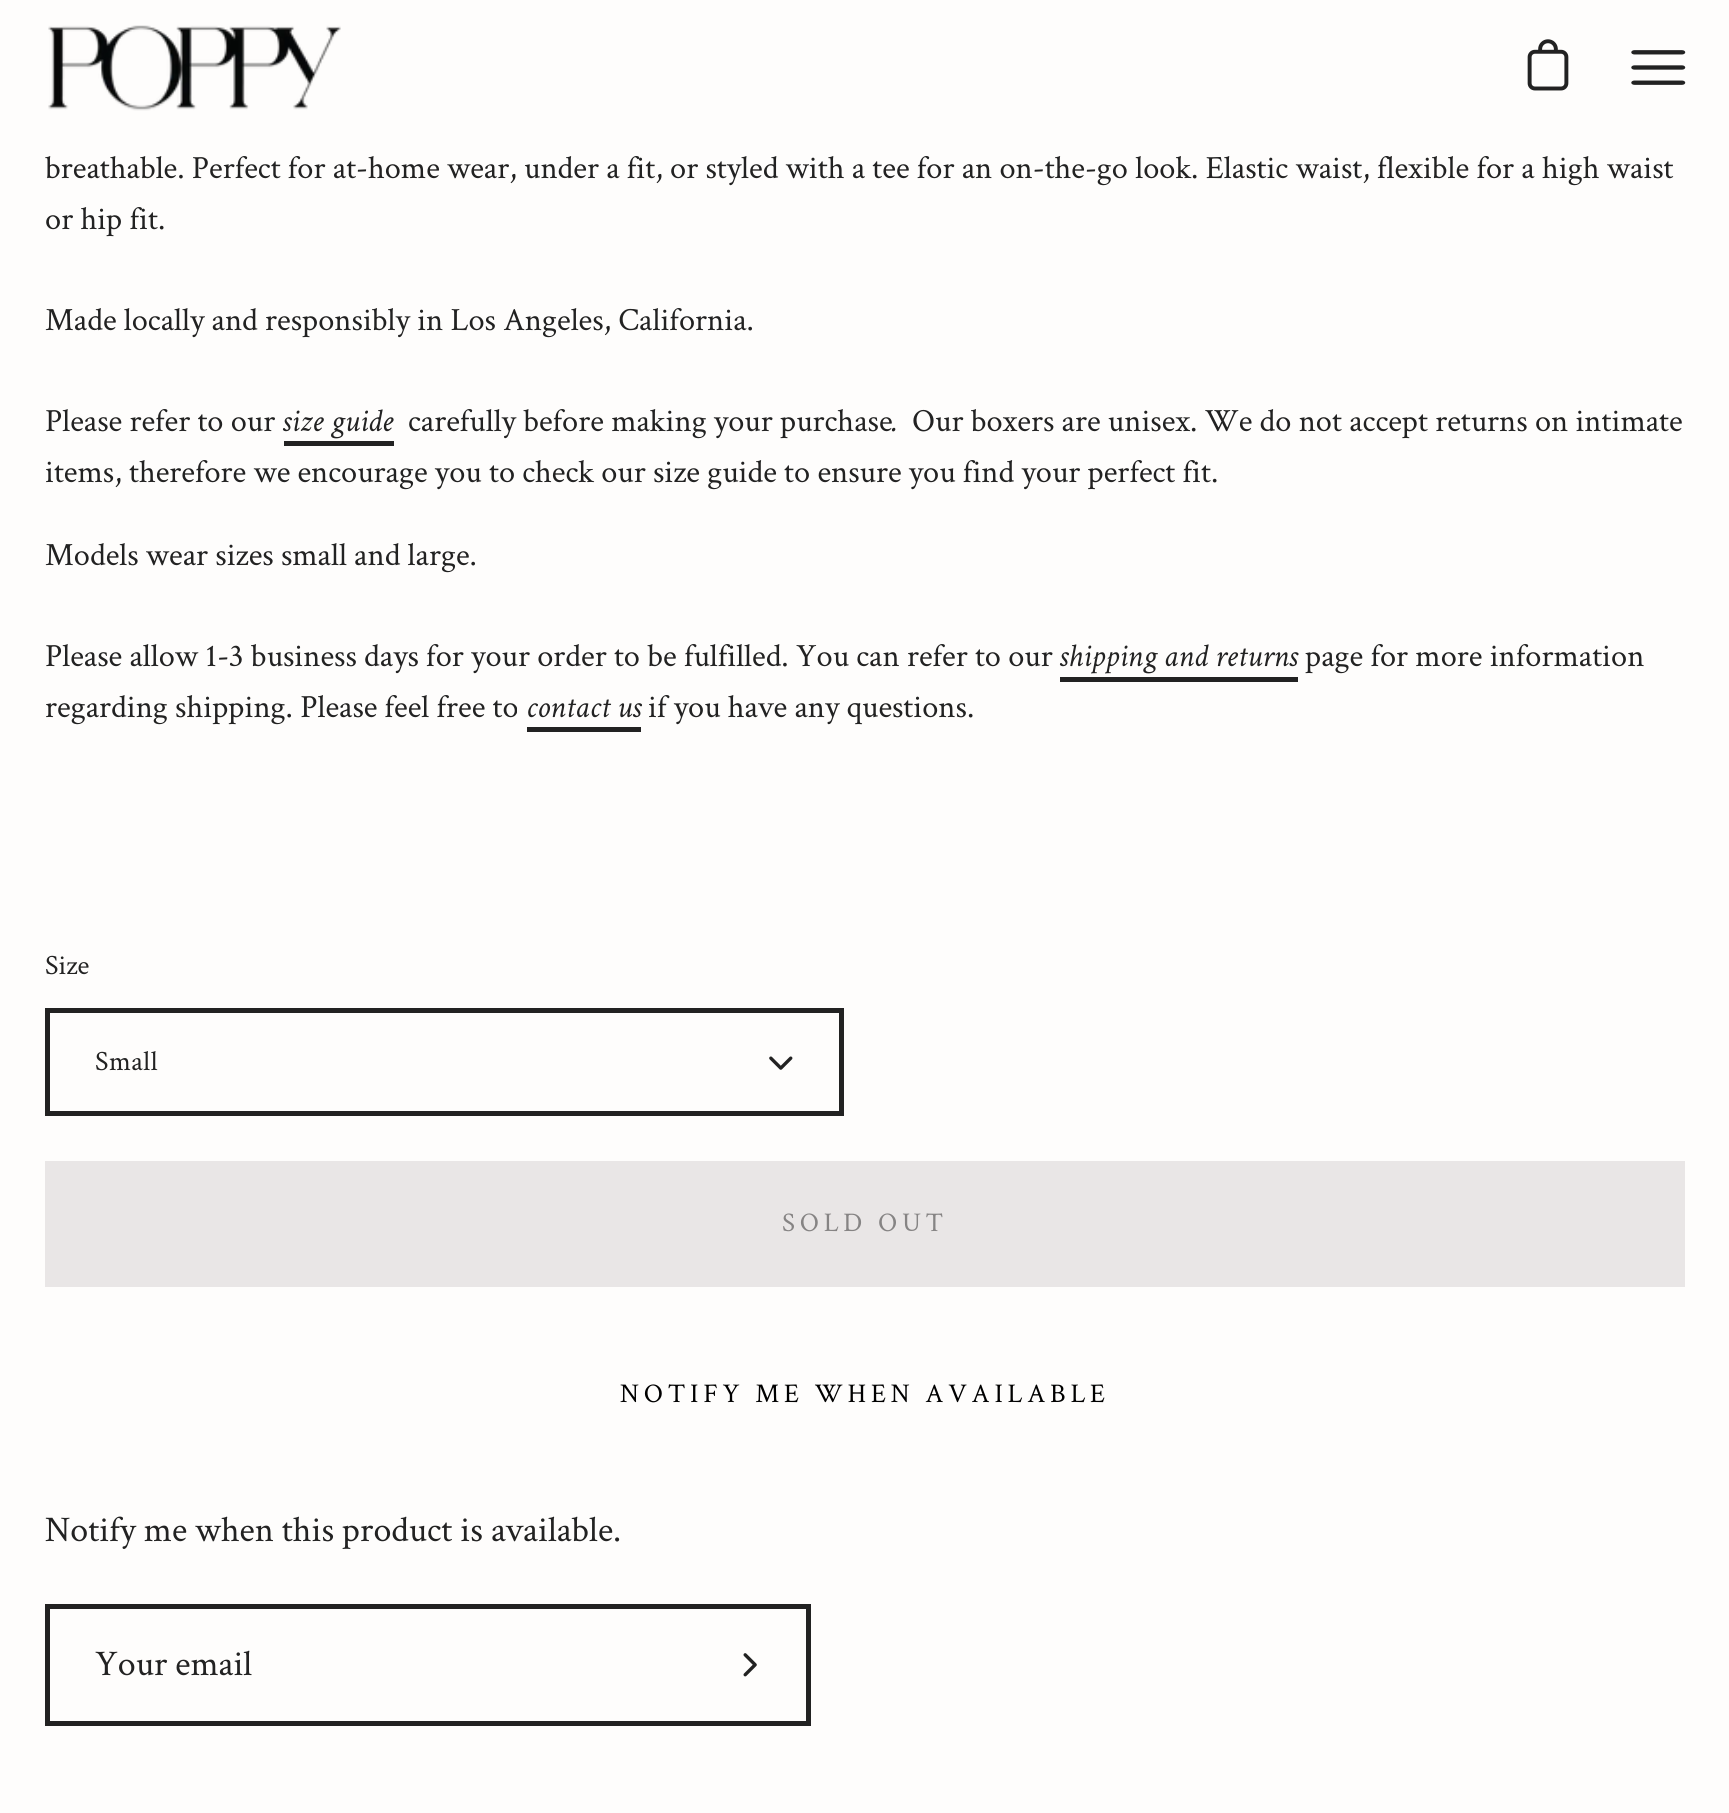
import math
import cairo



def draw_spaced(context, x, y, s, letter, word):
    context.move_to(x, y)
    for ch in s:
        context.show_text(ch)
        context.rel_move_to(letter + word * (ch == ' '), 0)


def draw_image(context, path, x, y, w, h):
    context.save()
    context.set_source_surface(cairo.ImageSurface.create_from_png(path), x, y)
    context.rectangle(x, y, w, h)
    context.fill()
    context.restore()


def draw(context):
    context.set_source_rgb(254 / 255, 253 / 255, 252 / 255)
    context.paint()
    draw_image(context, "images/1.png", 48, 25, 293, 86)
    draw_image(context, "images/2.png", 1527, 39, 42, 52)
    draw_image(context, "images/3.png", 1631, 50, 55, 35)
    context.set_source_rgb(34 / 255, 34 / 255, 34 / 255)
    context.rectangle(284, 441, 110, 5)
    context.fill()
    context.rectangle(1060, 677, 238, 5)
    context.fill()
    context.rectangle(527, 727, 114, 5)
    context.fill()
    context.rectangle(47.5, 1010.5, 794, 103)
    context.set_line_width(5)
    context.stroke()
    draw_image(context, "images/4.png", 769, 1056, 24, 14)
    context.set_source_rgb(233 / 255, 230 / 255, 230 / 255)
    context.rectangle(45, 1161, 1640, 126)
    context.fill()
    context.set_source_rgb(34 / 255, 34 / 255, 34 / 255)
    context.rectangle(45, 1604, 765, 5)
    context.fill()
    context.rectangle(806, 1604, 5, 122)
    context.fill()
    context.rectangle(45, 1721, 765, 5)
    context.fill()
    draw_image(context, "images/5.png", 743, 1653, 14, 24)
    context.rectangle(45, 1604, 5, 122)
    context.fill()
    context.select_font_face("Crimson Text")
    context.set_font_size(32.4)
    context.move_to(45, 178)
    context.show_text("breathable. Perfect for at-home wear, under a fit, or styled with a tee for an on-the-go look. Elastic waist, flexible for a high waist")
    context.move_to(45, 229)
    context.show_text("or hip fit.")
    context.move_to(45, 330)
    context.show_text("Made locally and responsibly in Los Angeles, California.")
    context.move_to(45, 431)
    context.show_text("Please refer to our")
    context.select_font_face("Crimson Text", cairo.FontSlant.ITALIC)
    context.move_to(282, 431)
    context.show_text("size guide")
    context.select_font_face("Crimson Text")
    context.move_to(408, 431)
    context.show_text("carefully before making your purchase")
    context.select_font_face("Crimson Text", cairo.FontSlant.ITALIC)
    context.move_to(892, 431)
    context.show_text(".")
    context.select_font_face("Crimson Text")
    context.move_to(912, 431)
    context.show_text("Our boxers are unisex. We do not accept returns on intimate")
    context.move_to(45, 482)
    context.show_text("items, therefore we encourage you to check our size guide to ensure you find your perfect fit.")
    context.move_to(45, 565)
    context.show_text("Models wear sizes small and large.")
    context.move_to(45, 666)
    context.show_text("Please allow 1-3 business days for your order to be fulfilled. You can refer to our")
    context.select_font_face("Crimson Text", cairo.FontSlant.ITALIC)
    context.move_to(1059, 666)
    context.show_text("shipping and returns")
    context.select_font_face("Crimson Text")
    context.move_to(1305, 666)
    context.show_text("page for more information")
    context.move_to(45, 717)
    context.show_text("regarding shipping. Please feel free to")
    context.select_font_face("Crimson Text", cairo.FontSlant.ITALIC)
    context.move_to(526, 717)
    context.show_text("contact us")
    context.select_font_face("Crimson Text")
    context.move_to(648, 717)
    context.show_text("if you have any questions.")
    context.set_font_size(28)
    context.move_to(45, 974)
    context.show_text("Size")
    draw_spaced(context, 95, 1070, "Small", 0.5, 0)
    context.set_font_size(27)
    context.set_source_rgb(134 / 255, 132 / 255, 132 / 255)
    draw_spaced(context, 782, 1231, "SOLD OUT", 4.75, 0)
    context.set_source_rgb(0, 0, 0)
    draw_spaced(context, 620, 1402, "NOTIFY ME WHEN AVAILABLE", 4.75, 0)
    context.set_font_size(36)
    context.set_source_rgb(34 / 255, 34 / 255, 34 / 255)
    context.move_to(45, 1541)
    context.show_text("Notify me when this product is available.")
    context.move_to(95, 1675)
    context.show_text("Your email")


surface = cairo.ImageSurface(cairo.Format.RGB24, 1729, 1813)
context = cairo.Context(surface)
options = cairo.FontOptions()
options.set_hint_metrics(cairo.HintMetrics.OFF)
options.set_hint_style(cairo.HintStyle.NONE)
context.set_font_options(options)
context.set_miter_limit(4)
draw(context)
surface.write_to_png("out.png")
